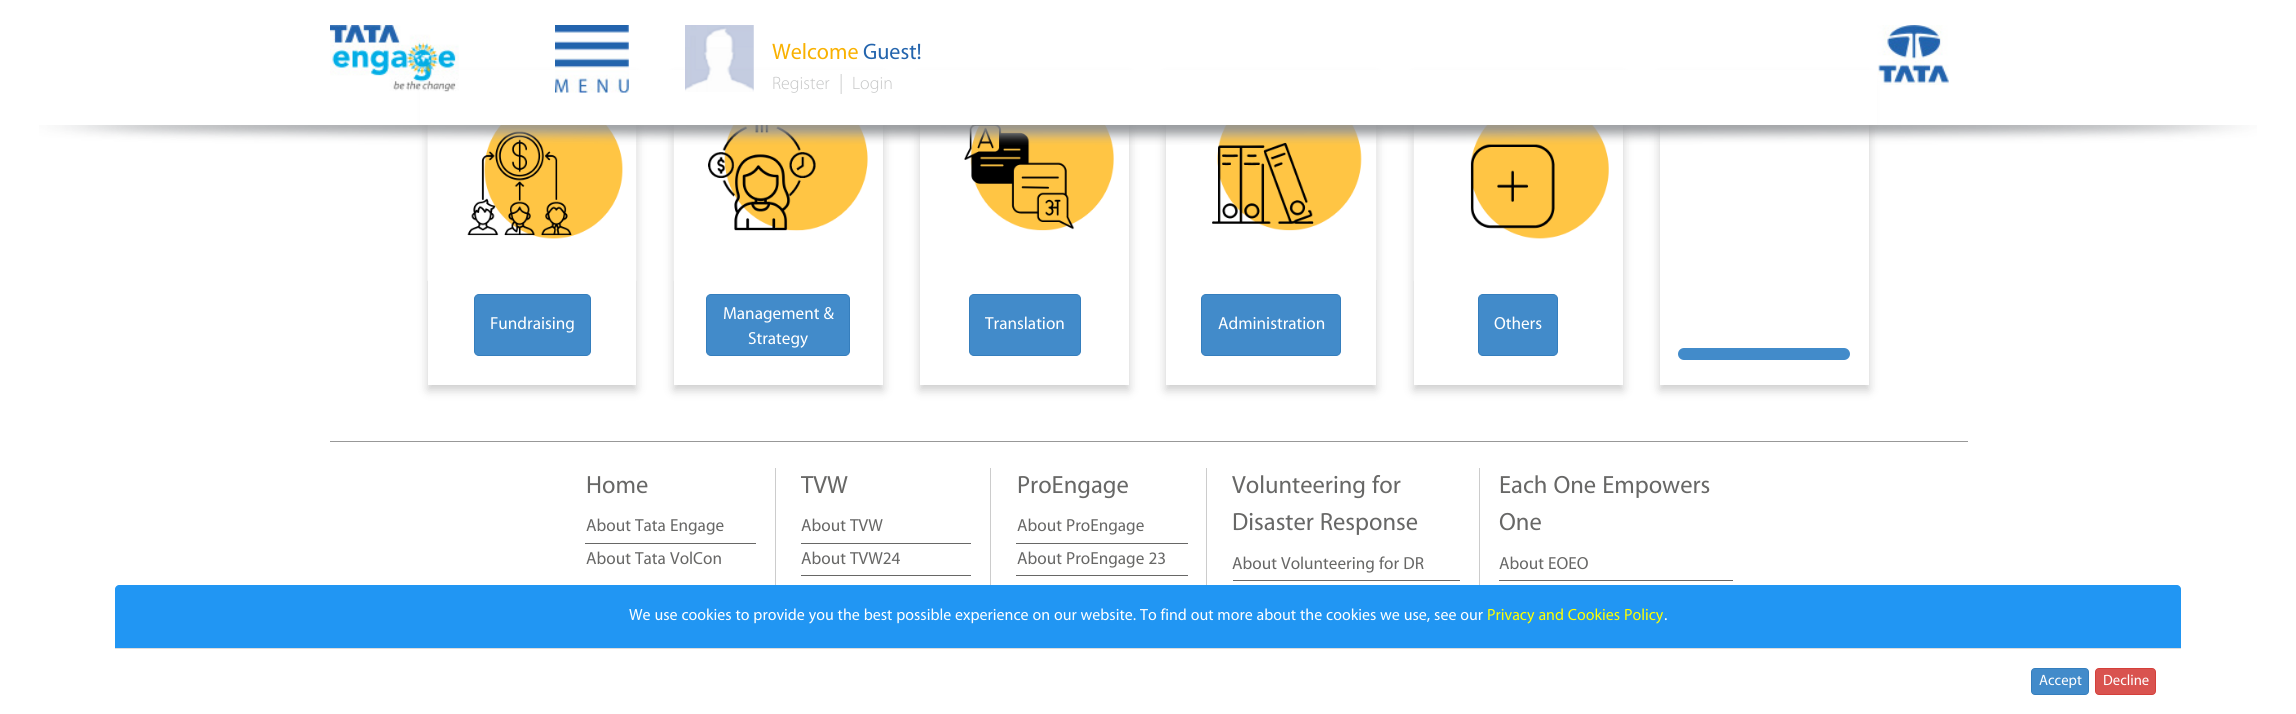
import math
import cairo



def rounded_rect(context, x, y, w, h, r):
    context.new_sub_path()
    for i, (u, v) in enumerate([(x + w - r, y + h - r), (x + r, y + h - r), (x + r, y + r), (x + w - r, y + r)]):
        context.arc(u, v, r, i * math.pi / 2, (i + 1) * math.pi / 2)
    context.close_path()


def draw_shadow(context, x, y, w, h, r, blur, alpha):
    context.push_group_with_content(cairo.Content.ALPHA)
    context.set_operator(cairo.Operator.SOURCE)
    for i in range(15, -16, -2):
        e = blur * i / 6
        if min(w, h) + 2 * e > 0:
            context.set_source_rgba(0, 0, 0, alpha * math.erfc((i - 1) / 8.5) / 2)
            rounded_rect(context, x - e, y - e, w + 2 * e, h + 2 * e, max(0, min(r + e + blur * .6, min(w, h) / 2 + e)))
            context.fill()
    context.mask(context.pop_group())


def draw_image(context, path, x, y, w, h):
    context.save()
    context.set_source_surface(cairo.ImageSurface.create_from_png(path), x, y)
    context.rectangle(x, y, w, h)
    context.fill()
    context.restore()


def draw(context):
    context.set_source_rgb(1, 1, 1)
    context.paint()
    context.save()
    context.set_fill_rule(cairo.FillRule.EVEN_ODD)
    context.new_path()
    context.move_to(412, 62)
    context.line_to(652, 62)
    context.line_to(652, 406)
    context.line_to(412, 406)
    context.close_path()
    context.move_to(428, 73)
    context.line_to(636, 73)
    context.line_to(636, 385)
    context.line_to(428, 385)
    context.close_path()
    context.clip()
    context.set_source_rgb(0, 0, 0)
    draw_shadow(context, 428, 78, 208, 312, 0, 5, 0.2)
    context.restore()
    context.save()
    context.set_fill_rule(cairo.FillRule.EVEN_ODD)
    context.new_path()
    context.move_to(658, 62)
    context.line_to(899, 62)
    context.line_to(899, 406)
    context.line_to(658, 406)
    context.close_path()
    context.move_to(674, 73)
    context.line_to(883, 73)
    context.line_to(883, 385)
    context.line_to(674, 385)
    context.close_path()
    context.clip()
    context.set_source_rgb(0, 0, 0)
    draw_shadow(context, 674, 78, 209, 312, 0, 5, 0.2)
    context.restore()
    context.save()
    context.set_fill_rule(cairo.FillRule.EVEN_ODD)
    context.new_path()
    context.move_to(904, 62)
    context.line_to(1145, 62)
    context.line_to(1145, 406)
    context.line_to(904, 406)
    context.close_path()
    context.move_to(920, 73)
    context.line_to(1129, 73)
    context.line_to(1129, 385)
    context.line_to(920, 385)
    context.close_path()
    context.clip()
    context.set_source_rgb(0, 0, 0)
    draw_shadow(context, 920, 78, 209, 312, 0, 5, 0.2)
    context.restore()
    context.save()
    context.set_fill_rule(cairo.FillRule.EVEN_ODD)
    context.new_path()
    context.move_to(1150, 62)
    context.line_to(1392, 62)
    context.line_to(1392, 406)
    context.line_to(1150, 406)
    context.close_path()
    context.move_to(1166, 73)
    context.line_to(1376, 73)
    context.line_to(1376, 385)
    context.line_to(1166, 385)
    context.close_path()
    context.clip()
    context.set_source_rgb(0, 0, 0)
    draw_shadow(context, 1166, 78, 210, 312, 0, 5, 0.2)
    context.restore()
    context.save()
    context.set_fill_rule(cairo.FillRule.EVEN_ODD)
    context.new_path()
    context.move_to(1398, 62)
    context.line_to(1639, 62)
    context.line_to(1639, 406)
    context.line_to(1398, 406)
    context.close_path()
    context.move_to(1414, 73)
    context.line_to(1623, 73)
    context.line_to(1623, 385)
    context.line_to(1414, 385)
    context.close_path()
    context.clip()
    context.set_source_rgb(0, 0, 0)
    draw_shadow(context, 1414, 78, 209, 312, 0, 5, 0.2)
    context.restore()
    context.save()
    context.set_fill_rule(cairo.FillRule.EVEN_ODD)
    context.new_path()
    context.move_to(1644, 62)
    context.line_to(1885, 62)
    context.line_to(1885, 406)
    context.line_to(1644, 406)
    context.close_path()
    context.move_to(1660, 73)
    context.line_to(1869, 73)
    context.line_to(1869, 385)
    context.line_to(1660, 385)
    context.close_path()
    context.clip()
    context.set_source_rgb(0, 0, 0)
    draw_shadow(context, 1660, 78, 209, 312, 0, 5, 0.2)
    context.restore()
    context.set_source_rgb(1, 1, 1)
    context.rectangle(420, 70, 1457, 55)
    context.fill()
    draw_image(context, "images/1.png", 330, 25, 129, 67)
    draw_image(context, "images/2.png", 555, 25, 74, 68)
    draw_image(context, "images/3.png", 685, 25, 69, 67)
    draw_image(context, "images/4.png", 1877, 25, 72, 60)
    draw_image(context, "images/6.png", 427, 125, 210, 156)
    draw_image(context, "images/7.png", 673, 125, 210, 156)
    draw_image(context, "images/8.png", 964, 125, 165, 155)
    draw_image(context, "images/9.png", 1166, 125, 211, 155)
    draw_image(context, "images/10.png", 1413, 125, 210, 156)
    draw_image(context, "images/5.png", 39, 125, 2218, 20)
    context.set_source_rgb(66 / 255, 139 / 255, 202 / 255)
    rounded_rect(context, 474.5, 294.5, 116, 61, 4.5)
    context.fill_preserve()
    context.set_source_rgb(53 / 255, 126 / 255, 189 / 255)
    context.set_line_width(1)
    context.stroke()
    context.set_source_rgb(66 / 255, 139 / 255, 202 / 255)
    rounded_rect(context, 706.5, 294.5, 143, 61, 4.5)
    context.fill_preserve()
    context.set_source_rgb(53 / 255, 126 / 255, 189 / 255)
    context.stroke()
    context.set_source_rgb(66 / 255, 139 / 255, 202 / 255)
    rounded_rect(context, 969.5, 294.5, 111, 61, 4.5)
    context.fill_preserve()
    context.set_source_rgb(53 / 255, 126 / 255, 189 / 255)
    context.stroke()
    context.set_source_rgb(66 / 255, 139 / 255, 202 / 255)
    rounded_rect(context, 1201.5, 294.5, 139, 61, 4.5)
    context.fill_preserve()
    context.set_source_rgb(53 / 255, 126 / 255, 189 / 255)
    context.stroke()
    context.set_source_rgb(66 / 255, 139 / 255, 202 / 255)
    rounded_rect(context, 1478.5, 294.5, 79, 61, 4.5)
    context.fill_preserve()
    context.set_source_rgb(53 / 255, 126 / 255, 189 / 255)
    context.stroke()
    context.set_source_rgb(66 / 255, 139 / 255, 202 / 255)
    rounded_rect(context, 1678, 348, 172, 12, 6)
    context.fill()
    context.set_source_rgb(152 / 255, 152 / 255, 152 / 255)
    context.rectangle(330, 441, 1638, 1)
    context.fill()
    context.set_source_rgb(204 / 255, 204 / 255, 204 / 255)
    context.rectangle(775, 468, 1, 117)
    context.fill()
    context.set_source_rgb(103 / 255, 103 / 255, 102 / 255)
    context.rectangle(585, 543, 171, 1)
    context.fill()
    context.set_source_rgb(204 / 255, 204 / 255, 204 / 255)
    context.rectangle(990, 468, 1, 117)
    context.fill()
    context.set_source_rgb(103 / 255, 103 / 255, 102 / 255)
    context.rectangle(801, 543, 170, 1)
    context.fill()
    context.rectangle(801, 575, 170, 1)
    context.fill()
    context.set_source_rgb(204 / 255, 204 / 255, 204 / 255)
    context.rectangle(1206, 468, 1, 117)
    context.fill()
    context.set_source_rgb(103 / 255, 103 / 255, 102 / 255)
    context.rectangle(1016, 543, 172, 1)
    context.fill()
    context.rectangle(1016, 575, 172, 1)
    context.fill()
    context.set_source_rgb(204 / 255, 204 / 255, 204 / 255)
    context.rectangle(1479, 468, 1, 117)
    context.fill()
    context.set_source_rgb(103 / 255, 103 / 255, 102 / 255)
    context.rectangle(1233, 580, 227, 1)
    context.fill()
    context.rectangle(1499, 580, 234, 1)
    context.fill()
    context.set_source_rgb(33 / 255, 150 / 255, 243 / 255)
    context.new_path()
    context.move_to(119, 585)
    context.line_to(2177, 585)
    context.curve_to(2179, 585, 2181, 587, 2181, 589)
    context.line_to(2181, 714)
    context.line_to(115, 714)
    context.line_to(115, 589)
    context.curve_to(115, 587, 117, 585, 119, 585)
    context.close_path()
    context.fill()
    context.set_source_rgb(1, 1, 1)
    context.rectangle(115, 649, 2066, 65)
    context.fill()
    context.set_source_rgb(221 / 255, 221 / 255, 221 / 255)
    context.rectangle(115, 648, 2066, 1)
    context.fill()
    context.set_source_rgb(66 / 255, 139 / 255, 202 / 255)
    rounded_rect(context, 2031.5, 668.5, 57, 26, 3.5)
    context.fill_preserve()
    context.set_source_rgb(53 / 255, 126 / 255, 189 / 255)
    context.stroke()
    context.set_source_rgb(217 / 255, 83 / 255, 79 / 255)
    rounded_rect(context, 2095.5, 668.5, 60, 26, 3.5)
    context.fill_preserve()
    context.set_source_rgb(212 / 255, 63 / 255, 58 / 255)
    context.stroke()
    context.select_font_face("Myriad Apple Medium")
    context.set_font_size(22.5)
    context.set_source_rgb(249 / 255, 177 / 255, 1 / 255)
    context.move_to(772, 59)
    context.show_text("Welcome")
    context.set_source_rgb(35 / 255, 100 / 255, 173 / 255)
    context.move_to(863, 59)
    context.show_text("Guest!")
    context.select_font_face("Myriad Light")
    context.set_font_size(18)
    context.set_source_rgb(197 / 255, 198 / 255, 198 / 255)
    context.move_to(772, 89)
    context.show_text("Register")
    context.set_font_size(20)
    context.move_to(839, 89)
    context.show_text("|")
    context.set_font_size(18)
    context.move_to(852, 89)
    context.show_text("Login")
    context.select_font_face("Myriad Apple Medium")
    context.set_font_size(17.5)
    context.set_source_rgb(1, 1, 1)
    context.move_to(490, 329)
    context.show_text("Fundraising")
    context.move_to(723, 319)
    context.show_text("Management &")
    context.move_to(748, 344)
    context.show_text("Strategy")
    context.move_to(985, 329)
    context.show_text("Translation")
    context.move_to(1218, 329)
    context.show_text("Administration")
    context.move_to(1494, 329)
    context.show_text("Others")
    context.set_font_size(25)
    context.set_source_rgb(103 / 255, 103 / 255, 102 / 255)
    context.move_to(586, 493)
    context.show_text("Home")
    context.set_font_size(17.5)
    context.move_to(586, 531)
    context.show_text("About Tata Engage")
    context.move_to(586, 564)
    context.show_text("About Tata VolCon")
    context.set_font_size(25)
    context.move_to(801, 493)
    context.show_text("TVW")
    context.set_font_size(17.5)
    context.move_to(801, 531)
    context.show_text("About TVW")
    context.move_to(801, 564)
    context.show_text("About TVW24")
    context.set_font_size(25)
    context.move_to(1017, 493)
    context.show_text("ProEngage")
    context.set_font_size(17.5)
    context.move_to(1017, 531)
    context.show_text("About ProEngage")
    context.move_to(1017, 564)
    context.show_text("About ProEngage 23")
    context.set_font_size(25)
    context.move_to(1232, 493)
    context.show_text("Volunteering for")
    context.move_to(1232, 530)
    context.show_text("Disaster Response")
    context.set_font_size(17.5)
    context.move_to(1232, 569)
    context.show_text("About Volunteering for DR")
    context.set_font_size(25)
    context.move_to(1499, 493)
    context.show_text("Each One Empowers")
    context.move_to(1499, 530)
    context.show_text("One")
    context.set_font_size(17.5)
    context.move_to(1499, 569)
    context.show_text("About EOEO")
    context.set_font_size(16.25)
    context.set_source_rgb(1, 1, 1)
    context.move_to(629, 620)
    context.show_text("We use cookies to provide you the best possible experience on our website. To find out more about the cookies we use, see our")
    context.set_source_rgb(1, 1, 0)
    context.move_to(1487, 620)
    context.show_text("Privacy and Cookies Policy")
    context.set_source_rgb(1, 1, 1)
    context.move_to(1664, 620)
    context.show_text(".")
    context.set_font_size(15)
    context.move_to(2039, 685)
    context.show_text("Accept")
    context.move_to(2103, 685)
    context.show_text("Decline")


surface = cairo.ImageSurface(cairo.Format.RGB24, 2296, 714)
context = cairo.Context(surface)
options = cairo.FontOptions()
options.set_hint_metrics(cairo.HintMetrics.OFF)
options.set_hint_style(cairo.HintStyle.NONE)
context.set_font_options(options)
context.set_miter_limit(4)
draw(context)
surface.write_to_png("out.png")
